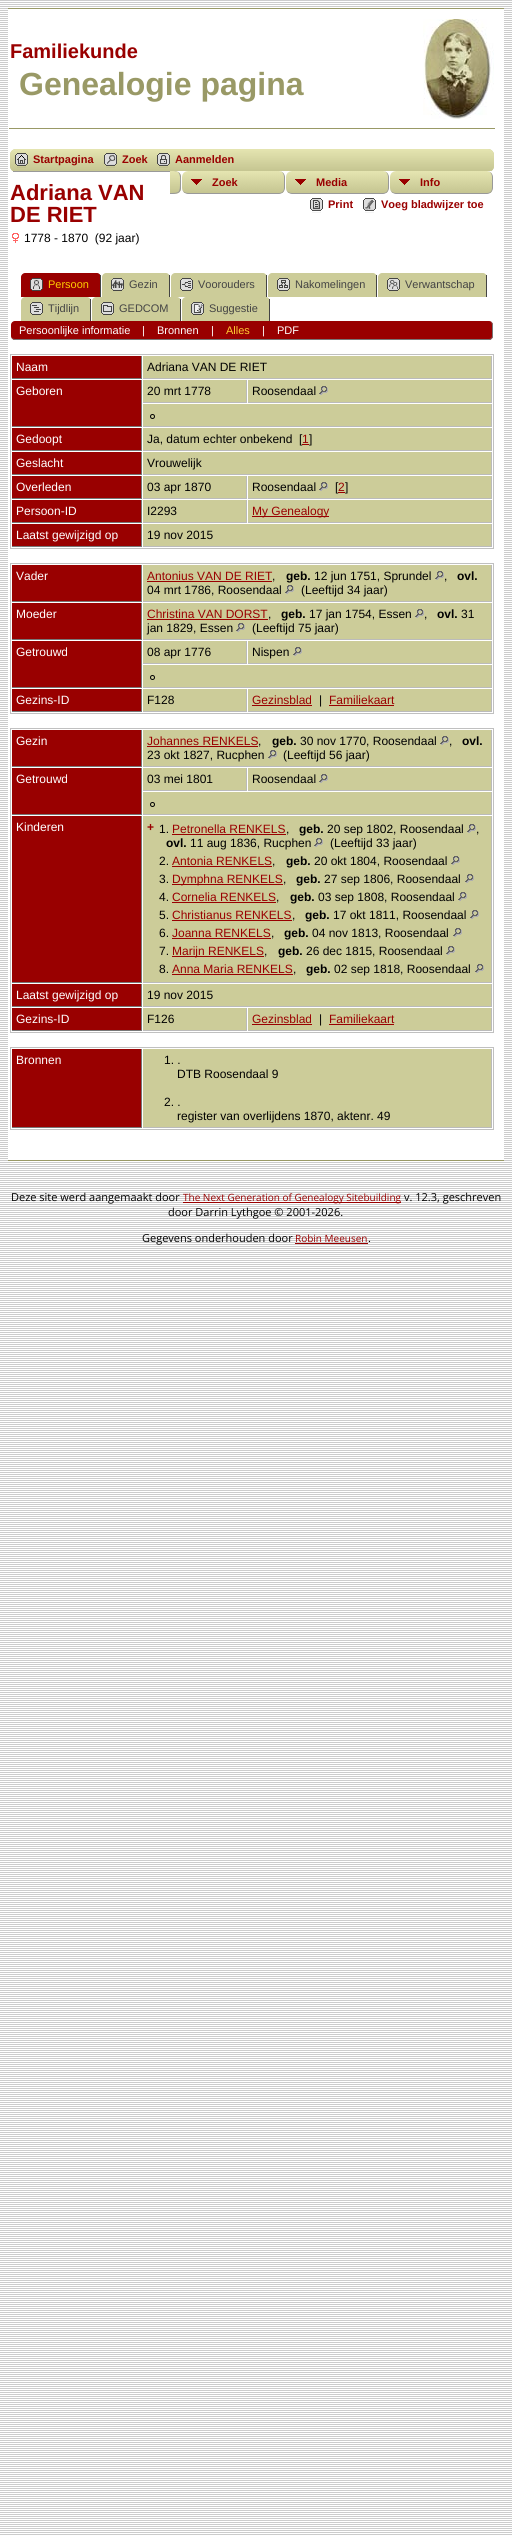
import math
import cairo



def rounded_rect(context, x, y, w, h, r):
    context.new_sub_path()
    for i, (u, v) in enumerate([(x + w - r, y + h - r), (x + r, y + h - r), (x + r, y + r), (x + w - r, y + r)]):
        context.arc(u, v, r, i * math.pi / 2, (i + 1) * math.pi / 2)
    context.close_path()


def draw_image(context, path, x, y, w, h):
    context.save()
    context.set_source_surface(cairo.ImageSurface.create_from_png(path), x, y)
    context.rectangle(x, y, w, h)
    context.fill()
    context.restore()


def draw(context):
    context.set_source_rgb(1, 1, 1)
    context.paint()
    draw_image(context, "images/1.png", 0, 0, 512, 2535)
    context.set_source_rgb(1, 1, 1)
    context.rectangle(8, 10, 496, 1149)
    context.fill()
    context.set_source_rgb(153 / 255, 153 / 255, 102 / 255)
    context.rectangle(8, 8, 496, 1)
    context.fill()
    draw_image(context, "images/2.png", 423, 19, 71, 100)
    context.rectangle(9, 128, 486, 1)
    context.fill()
    context.set_source_rgb(204 / 255, 204 / 255, 153 / 255)
    rounded_rect(context, 10, 149, 484, 23, 6)
    context.fill()
    context.save()
    rounded_rect(context, 10, 149, 484, 23, 6)
    context.clip()
    gradient = cairo.LinearGradient(252, 149, 252, 171)
    gradient.add_color_stop_rgba(0, 229 / 255, 229 / 255, 177 / 255, 1)
    gradient.add_color_stop_rgba(1, 197 / 255, 197 / 255, 145 / 255, 1)
    context.set_source(gradient)
    context.new_path()
    context.move_to(16, 149)
    context.line_to(488, 149)
    context.curve_to(491.5, 149, 494, 151.5, 494, 155)
    context.line_to(494, 171)
    context.line_to(10, 171)
    context.line_to(10, 155)
    context.curve_to(10, 151.5, 12.5, 149, 16, 149)
    context.close_path()
    context.fill()
    context.restore()
    context.set_source_rgb(153 / 255, 153 / 255, 153 / 255)
    context.rectangle(13, 171, 157, 1)
    context.fill()
    draw_image(context, "images/3.png", 15, 153, 13, 15)
    draw_image(context, "images/4.png", 104, 153, 13, 15)
    draw_image(context, "images/5.png", 157, 153, 13, 15)
    context.set_source_rgb(1, 1, 1)
    context.rectangle(175, 171, 316, 1)
    context.fill()
    context.save()
    context.new_path()
    context.move_to(170, 171)
    context.line_to(175, 171)
    context.curve_to(178.5, 171, 181, 173.5, 181, 177)
    context.line_to(181, 188)
    context.curve_to(181, 191.5, 178.5, 194, 175, 194)
    context.line_to(170, 194)
    context.close_path()
    context.clip()
    gradient = cairo.LinearGradient(175, 171, 175, 193)
    gradient.add_color_stop_rgba(0, 229 / 255, 229 / 255, 177 / 255, 1)
    gradient.add_color_stop_rgba(1, 197 / 255, 197 / 255, 145 / 255, 1)
    context.set_source(gradient)
    context.rectangle(170, 171, 11, 22)
    context.fill()
    gradient = cairo.LinearGradient(175, 193, 175, 215)
    gradient.add_color_stop_rgba(0, 229 / 255, 229 / 255, 177 / 255, 1)
    gradient.add_color_stop_rgba(1, 197 / 255, 197 / 255, 145 / 255, 1)
    context.set_source(gradient)
    context.rectangle(170, 193, 11, 1)
    context.fill()
    context.restore()
    context.set_source_rgb(153 / 255, 153 / 255, 153 / 255)
    context.set_fill_rule(cairo.FillRule.EVEN_ODD)
    context.new_path()
    context.move_to(170, 171)
    context.curve_to(174, 171, 180, 170.5, 181, 176)
    context.line_to(181, 189)
    context.curve_to(180, 194.5, 174, 194, 170, 194)
    context.close_path()
    context.move_to(170, 171)
    context.line_to(176, 171)
    context.curve_to(181, 172.5, 180, 179, 180, 182.5)
    context.curve_to(180, 192.5, 179.5, 193, 170, 193)
    context.close_path()
    context.fill()
    draw_image(context, "images/6.png", 182, 171, 102, 22)
    context.new_path()
    context.move_to(188, 171)
    context.line_to(279, 171)
    context.curve_to(282, 171, 285, 174, 285, 177)
    context.line_to(285, 188)
    context.curve_to(285, 191, 282, 194, 279, 194)
    context.line_to(188, 194)
    context.curve_to(185, 194, 182, 191, 182, 188)
    context.line_to(182, 177)
    context.curve_to(182, 174, 185, 171, 188, 171)
    context.close_path()
    context.move_to(188, 171)
    context.line_to(279, 171)
    context.curve_to(282, 171, 284, 174, 284, 177)
    context.line_to(284, 188)
    context.curve_to(284, 191, 282, 193, 279, 193)
    context.line_to(188, 193)
    context.curve_to(185, 193, 182, 191, 182, 188)
    context.line_to(182, 177)
    context.curve_to(182, 174, 185, 171, 188, 171)
    context.close_path()
    context.fill()
    draw_image(context, "images/6.png", 286, 171, 102, 22)
    context.new_path()
    context.move_to(292, 171)
    context.line_to(383, 171)
    context.curve_to(386, 171, 389, 174, 389, 177)
    context.line_to(389, 188)
    context.curve_to(389, 191, 386, 194, 383, 194)
    context.line_to(292, 194)
    context.curve_to(289, 194, 286, 191, 286, 188)
    context.line_to(286, 177)
    context.curve_to(286, 174, 289, 171, 292, 171)
    context.close_path()
    context.move_to(292, 171)
    context.line_to(383, 171)
    context.curve_to(386, 171, 388, 174, 388, 177)
    context.line_to(388, 188)
    context.curve_to(388, 191, 386, 193, 383, 193)
    context.line_to(292, 193)
    context.curve_to(289, 193, 286, 191, 286, 188)
    context.line_to(286, 177)
    context.curve_to(286, 174, 289, 171, 292, 171)
    context.close_path()
    context.fill()
    draw_image(context, "images/6.png", 390, 171, 102, 22)
    context.new_path()
    context.move_to(396, 171)
    context.line_to(487, 171)
    context.curve_to(490, 171, 493, 174, 493, 177)
    context.line_to(493, 188)
    context.curve_to(493, 191, 490, 194, 487, 194)
    context.line_to(396, 194)
    context.curve_to(393, 194, 390, 191, 390, 188)
    context.line_to(390, 177)
    context.curve_to(390, 174, 393, 171, 396, 171)
    context.close_path()
    context.move_to(396, 171)
    context.line_to(487, 171)
    context.curve_to(490, 171, 492, 174, 492, 177)
    context.line_to(492, 188)
    context.curve_to(492, 191, 490, 193, 487, 193)
    context.line_to(396, 193)
    context.curve_to(393, 193, 390, 191, 390, 188)
    context.line_to(390, 177)
    context.curve_to(390, 174, 393, 171, 396, 171)
    context.close_path()
    context.fill()
    draw_image(context, "images/7.png", 12, 233, 7, 10)
    context.set_source_rgb(153 / 255, 0, 0)
    context.new_path()
    context.move_to(25, 273)
    context.line_to(97, 273)
    context.curve_to(99, 273, 101, 275, 101, 277)
    context.line_to(101, 297)
    context.line_to(21, 297)
    context.line_to(21, 277)
    context.curve_to(21, 275, 23, 273, 25, 273)
    context.close_path()
    context.fill()
    context.set_source_rgb(68 / 255, 68 / 255, 68 / 255)
    context.rectangle(100, 275, 1, 22)
    context.fill()
    draw_image(context, "images/8.png", 30, 278, 13, 13)
    context.set_source_rgb(204 / 255, 204 / 255, 153 / 255)
    context.new_path()
    context.move_to(106, 273)
    context.line_to(166, 273)
    context.curve_to(168, 273, 170, 275, 170, 277)
    context.line_to(170, 297)
    context.line_to(102, 297)
    context.line_to(102, 277)
    context.curve_to(102, 275, 104, 273, 106, 273)
    context.close_path()
    context.fill()
    context.set_source_rgb(68 / 255, 68 / 255, 68 / 255)
    context.rectangle(169, 275, 1, 22)
    context.fill()
    draw_image(context, "images/9.png", 111, 278, 13, 13)
    context.set_source_rgb(204 / 255, 204 / 255, 153 / 255)
    context.new_path()
    context.move_to(175, 273)
    context.line_to(263, 273)
    context.curve_to(265, 273, 267, 275, 267, 277)
    context.line_to(267, 297)
    context.line_to(171, 297)
    context.line_to(171, 277)
    context.curve_to(171, 275, 173, 273, 175, 273)
    context.close_path()
    context.fill()
    context.set_source_rgb(68 / 255, 68 / 255, 68 / 255)
    context.rectangle(266, 275, 1, 22)
    context.fill()
    draw_image(context, "images/10.png", 180, 278, 13, 13)
    context.set_source_rgb(204 / 255, 204 / 255, 153 / 255)
    context.new_path()
    context.move_to(272, 273)
    context.line_to(373, 273)
    context.curve_to(375, 273, 377, 275, 377, 277)
    context.line_to(377, 297)
    context.line_to(268, 297)
    context.line_to(268, 277)
    context.curve_to(268, 275, 270, 273, 272, 273)
    context.close_path()
    context.fill()
    context.set_source_rgb(68 / 255, 68 / 255, 68 / 255)
    context.rectangle(376, 275, 1, 22)
    context.fill()
    draw_image(context, "images/11.png", 277, 278, 13, 13)
    context.set_source_rgb(204 / 255, 204 / 255, 153 / 255)
    context.new_path()
    context.move_to(382, 273)
    context.line_to(483, 273)
    context.curve_to(485, 273, 487, 275, 487, 277)
    context.line_to(487, 297)
    context.line_to(378, 297)
    context.line_to(378, 277)
    context.curve_to(378, 275, 380, 273, 382, 273)
    context.close_path()
    context.fill()
    context.set_source_rgb(68 / 255, 68 / 255, 68 / 255)
    context.rectangle(486, 275, 1, 22)
    context.fill()
    draw_image(context, "images/12.png", 387, 278, 13, 13)
    context.set_source_rgb(204 / 255, 204 / 255, 153 / 255)
    context.new_path()
    context.move_to(25, 297)
    context.line_to(87, 297)
    context.curve_to(89, 297, 91, 299, 91, 301)
    context.line_to(91, 321)
    context.line_to(21, 321)
    context.line_to(21, 301)
    context.curve_to(21, 299, 23, 297, 25, 297)
    context.close_path()
    context.fill()
    context.set_source_rgb(68 / 255, 68 / 255, 68 / 255)
    context.rectangle(90, 299, 1, 22)
    context.fill()
    draw_image(context, "images/13.png", 30, 302, 13, 13)
    context.set_source_rgb(204 / 255, 204 / 255, 153 / 255)
    context.new_path()
    context.move_to(96, 297)
    context.line_to(177, 297)
    context.curve_to(179, 297, 181, 299, 181, 301)
    context.line_to(181, 321)
    context.line_to(92, 321)
    context.line_to(92, 301)
    context.curve_to(92, 299, 94, 297, 96, 297)
    context.close_path()
    context.fill()
    context.set_source_rgb(68 / 255, 68 / 255, 68 / 255)
    context.rectangle(180, 299, 1, 22)
    context.fill()
    draw_image(context, "images/14.png", 101, 302, 13, 13)
    context.set_source_rgb(204 / 255, 204 / 255, 153 / 255)
    context.new_path()
    context.move_to(186, 297)
    context.line_to(266, 297)
    context.curve_to(268, 297, 270, 299, 270, 301)
    context.line_to(270, 321)
    context.line_to(182, 321)
    context.line_to(182, 301)
    context.curve_to(182, 299, 184, 297, 186, 297)
    context.close_path()
    context.fill()
    context.set_source_rgb(68 / 255, 68 / 255, 68 / 255)
    context.rectangle(269, 299, 1, 22)
    context.fill()
    draw_image(context, "images/15.png", 191, 302, 13, 13)
    context.set_source_rgb(153 / 255, 0, 0)
    rounded_rect(context, 11, 321, 482, 19, 4)
    context.fill()
    context.set_source_rgb(119 / 255, 119 / 255, 119 / 255)
    context.new_path()
    context.move_to(15, 321)
    context.line_to(489, 321)
    context.curve_to(491, 321, 493, 323, 493, 325)
    context.line_to(493, 336)
    context.curve_to(493, 338, 491, 340, 489, 340)
    context.line_to(15, 340)
    context.curve_to(13, 340, 11, 338, 11, 336)
    context.line_to(11, 325)
    context.curve_to(11, 323, 13, 321, 15, 321)
    context.close_path()
    context.move_to(15, 321)
    context.line_to(489, 321)
    context.curve_to(491, 321, 492, 323, 492, 325)
    context.line_to(492, 336)
    context.curve_to(492, 338, 491, 339, 489, 339)
    context.line_to(15, 339)
    context.curve_to(13, 339, 11, 338, 11, 336)
    context.line_to(11, 325)
    context.curve_to(11, 323, 13, 321, 15, 321)
    context.close_path()
    context.fill()
    context.rectangle(10.5, 354.5, 483, 194)
    context.set_source_rgb(192 / 255, 192 / 255, 192 / 255)
    context.set_line_width(1)
    context.stroke()
    context.set_source_rgb(153 / 255, 0, 0)
    context.rectangle(12, 356, 129, 22)
    context.fill()
    context.set_source_rgb(119 / 255, 119 / 255, 119 / 255)
    context.rectangle(141, 356, 1, 23)
    context.fill()
    context.rectangle(12, 378, 130, 1)
    context.fill()
    context.set_source_rgb(204 / 255, 204 / 255, 153 / 255)
    context.rectangle(143, 356, 348, 22)
    context.fill()
    context.set_source_rgb(187 / 255, 187 / 255, 187 / 255)
    context.rectangle(491, 356, 1, 23)
    context.fill()
    context.rectangle(143, 378, 349, 1)
    context.fill()
    context.set_source_rgb(153 / 255, 0, 0)
    context.rectangle(12, 380, 129, 46)
    context.fill()
    context.set_source_rgb(119 / 255, 119 / 255, 119 / 255)
    context.rectangle(141, 380, 1, 47)
    context.fill()
    context.rectangle(12, 426, 130, 1)
    context.fill()
    context.set_source_rgb(204 / 255, 204 / 255, 153 / 255)
    context.rectangle(143, 380, 103, 22)
    context.fill()
    context.set_source_rgb(187 / 255, 187 / 255, 187 / 255)
    context.rectangle(246, 380, 1, 23)
    context.fill()
    context.rectangle(143, 402, 104, 1)
    context.fill()
    context.set_source_rgb(204 / 255, 204 / 255, 153 / 255)
    context.rectangle(248, 380, 243, 22)
    context.fill()
    context.set_source_rgb(187 / 255, 187 / 255, 187 / 255)
    context.rectangle(491, 380, 1, 23)
    context.fill()
    context.rectangle(248, 402, 244, 1)
    context.fill()
    draw_image(context, "images/16.png", 319, 386, 9, 9)
    context.set_source_rgb(204 / 255, 204 / 255, 153 / 255)
    context.rectangle(143, 404, 348, 22)
    context.fill()
    context.set_source_rgb(187 / 255, 187 / 255, 187 / 255)
    context.rectangle(491, 404, 1, 23)
    context.fill()
    context.rectangle(143, 426, 349, 1)
    context.fill()
    context.arc(152.5, 416.5, 2, 0, 2 * math.pi)
    context.set_source_rgb(0, 0, 0)
    context.stroke()
    context.set_source_rgb(153 / 255, 0, 0)
    context.rectangle(12, 428, 129, 22)
    context.fill()
    context.set_source_rgb(119 / 255, 119 / 255, 119 / 255)
    context.rectangle(141, 428, 1, 23)
    context.fill()
    context.rectangle(12, 450, 130, 1)
    context.fill()
    context.set_source_rgb(204 / 255, 204 / 255, 153 / 255)
    context.rectangle(143, 428, 348, 22)
    context.fill()
    context.set_source_rgb(187 / 255, 187 / 255, 187 / 255)
    context.rectangle(491, 428, 1, 23)
    context.fill()
    context.rectangle(143, 450, 349, 1)
    context.fill()
    context.set_source_rgb(153 / 255, 0, 0)
    context.rectangle(12, 452, 129, 22)
    context.fill()
    context.set_source_rgb(119 / 255, 119 / 255, 119 / 255)
    context.rectangle(141, 452, 1, 23)
    context.fill()
    context.rectangle(12, 474, 130, 1)
    context.fill()
    context.set_source_rgb(204 / 255, 204 / 255, 153 / 255)
    context.rectangle(143, 452, 348, 22)
    context.fill()
    context.set_source_rgb(187 / 255, 187 / 255, 187 / 255)
    context.rectangle(491, 452, 1, 23)
    context.fill()
    context.rectangle(143, 474, 349, 1)
    context.fill()
    context.set_source_rgb(153 / 255, 0, 0)
    context.rectangle(12, 476, 129, 22)
    context.fill()
    context.set_source_rgb(119 / 255, 119 / 255, 119 / 255)
    context.rectangle(141, 476, 1, 23)
    context.fill()
    context.rectangle(12, 498, 130, 1)
    context.fill()
    context.set_source_rgb(204 / 255, 204 / 255, 153 / 255)
    context.rectangle(143, 476, 103, 22)
    context.fill()
    context.set_source_rgb(187 / 255, 187 / 255, 187 / 255)
    context.rectangle(246, 476, 1, 23)
    context.fill()
    context.rectangle(143, 498, 104, 1)
    context.fill()
    context.set_source_rgb(204 / 255, 204 / 255, 153 / 255)
    context.rectangle(248, 476, 243, 22)
    context.fill()
    context.set_source_rgb(187 / 255, 187 / 255, 187 / 255)
    context.rectangle(491, 476, 1, 23)
    context.fill()
    context.rectangle(248, 498, 244, 1)
    context.fill()
    draw_image(context, "images/16.png", 319, 482, 9, 9)
    context.set_source_rgb(153 / 255, 0, 0)
    context.rectangle(12, 500, 129, 22)
    context.fill()
    context.set_source_rgb(119 / 255, 119 / 255, 119 / 255)
    context.rectangle(141, 500, 1, 23)
    context.fill()
    context.rectangle(12, 522, 130, 1)
    context.fill()
    context.set_source_rgb(204 / 255, 204 / 255, 153 / 255)
    context.rectangle(143, 500, 103, 22)
    context.fill()
    context.set_source_rgb(187 / 255, 187 / 255, 187 / 255)
    context.rectangle(246, 500, 1, 23)
    context.fill()
    context.rectangle(143, 522, 104, 1)
    context.fill()
    context.set_source_rgb(204 / 255, 204 / 255, 153 / 255)
    context.rectangle(248, 500, 243, 22)
    context.fill()
    context.set_source_rgb(187 / 255, 187 / 255, 187 / 255)
    context.rectangle(491, 500, 1, 23)
    context.fill()
    context.rectangle(248, 522, 244, 1)
    context.fill()
    context.set_source_rgb(153 / 255, 0, 0)
    context.rectangle(252, 516, 77, 1)
    context.fill()
    context.rectangle(12, 524, 129, 22)
    context.fill()
    context.set_source_rgb(119 / 255, 119 / 255, 119 / 255)
    context.rectangle(141, 524, 1, 23)
    context.fill()
    context.rectangle(12, 546, 130, 1)
    context.fill()
    context.set_source_rgb(204 / 255, 204 / 255, 153 / 255)
    context.rectangle(143, 524, 348, 22)
    context.fill()
    context.set_source_rgb(187 / 255, 187 / 255, 187 / 255)
    context.rectangle(491, 524, 1, 23)
    context.fill()
    context.rectangle(143, 546, 349, 1)
    context.fill()
    context.rectangle(10.5, 563.5, 483, 150)
    context.set_source_rgb(192 / 255, 192 / 255, 192 / 255)
    context.stroke()
    context.set_source_rgb(153 / 255, 0, 0)
    context.rectangle(12, 565, 129, 36)
    context.fill()
    context.set_source_rgb(119 / 255, 119 / 255, 119 / 255)
    context.rectangle(141, 565, 1, 37)
    context.fill()
    context.rectangle(12, 601, 130, 1)
    context.fill()
    context.set_source_rgb(204 / 255, 204 / 255, 153 / 255)
    context.rectangle(143, 565, 348, 36)
    context.fill()
    context.set_source_rgb(187 / 255, 187 / 255, 187 / 255)
    context.rectangle(491, 565, 1, 37)
    context.fill()
    context.rectangle(143, 601, 349, 1)
    context.fill()
    context.set_source_rgb(153 / 255, 0, 0)
    context.rectangle(147, 581, 125, 1)
    context.fill()
    draw_image(context, "images/16.png", 435, 571, 9, 9)
    draw_image(context, "images/16.png", 285, 585, 9, 9)
    context.rectangle(12, 603, 129, 36)
    context.fill()
    context.set_source_rgb(119 / 255, 119 / 255, 119 / 255)
    context.rectangle(141, 603, 1, 37)
    context.fill()
    context.rectangle(12, 639, 130, 1)
    context.fill()
    context.set_source_rgb(204 / 255, 204 / 255, 153 / 255)
    context.rectangle(143, 603, 348, 36)
    context.fill()
    context.set_source_rgb(187 / 255, 187 / 255, 187 / 255)
    context.rectangle(491, 603, 1, 37)
    context.fill()
    context.rectangle(143, 639, 349, 1)
    context.fill()
    context.set_source_rgb(153 / 255, 0, 0)
    context.rectangle(147, 619, 121, 1)
    context.fill()
    draw_image(context, "images/16.png", 415, 609, 9, 9)
    draw_image(context, "images/16.png", 236, 623, 9, 9)
    context.rectangle(12, 641, 129, 46)
    context.fill()
    context.set_source_rgb(119 / 255, 119 / 255, 119 / 255)
    context.rectangle(141, 641, 1, 47)
    context.fill()
    context.rectangle(12, 687, 130, 1)
    context.fill()
    context.set_source_rgb(204 / 255, 204 / 255, 153 / 255)
    context.rectangle(143, 641, 103, 22)
    context.fill()
    context.set_source_rgb(187 / 255, 187 / 255, 187 / 255)
    context.rectangle(246, 641, 1, 23)
    context.fill()
    context.rectangle(143, 663, 104, 1)
    context.fill()
    context.set_source_rgb(204 / 255, 204 / 255, 153 / 255)
    context.rectangle(248, 641, 243, 22)
    context.fill()
    context.set_source_rgb(187 / 255, 187 / 255, 187 / 255)
    context.rectangle(491, 641, 1, 23)
    context.fill()
    context.rectangle(248, 663, 244, 1)
    context.fill()
    draw_image(context, "images/16.png", 293, 647, 9, 9)
    context.set_source_rgb(204 / 255, 204 / 255, 153 / 255)
    context.rectangle(143, 665, 348, 22)
    context.fill()
    context.set_source_rgb(187 / 255, 187 / 255, 187 / 255)
    context.rectangle(491, 665, 1, 23)
    context.fill()
    context.rectangle(143, 687, 349, 1)
    context.fill()
    context.arc(152.5, 677.5, 2, 0, 2 * math.pi)
    context.set_source_rgb(0, 0, 0)
    context.stroke()
    context.set_source_rgb(153 / 255, 0, 0)
    context.rectangle(12, 689, 129, 22)
    context.fill()
    context.set_source_rgb(119 / 255, 119 / 255, 119 / 255)
    context.rectangle(141, 689, 1, 23)
    context.fill()
    context.rectangle(12, 711, 130, 1)
    context.fill()
    context.set_source_rgb(204 / 255, 204 / 255, 153 / 255)
    context.rectangle(143, 689, 103, 22)
    context.fill()
    context.set_source_rgb(187 / 255, 187 / 255, 187 / 255)
    context.rectangle(246, 689, 1, 23)
    context.fill()
    context.rectangle(143, 711, 104, 1)
    context.fill()
    context.set_source_rgb(204 / 255, 204 / 255, 153 / 255)
    context.rectangle(248, 689, 243, 22)
    context.fill()
    context.set_source_rgb(187 / 255, 187 / 255, 187 / 255)
    context.rectangle(491, 689, 1, 23)
    context.fill()
    context.rectangle(248, 711, 244, 1)
    context.fill()
    context.set_source_rgb(153 / 255, 0, 0)
    context.rectangle(252, 705, 60, 1)
    context.fill()
    context.rectangle(329, 705, 65, 1)
    context.fill()
    context.rectangle(10.5, 728.5, 483, 304)
    context.set_source_rgb(192 / 255, 192 / 255, 192 / 255)
    context.stroke()
    context.set_source_rgb(153 / 255, 0, 0)
    context.rectangle(12, 730, 129, 36)
    context.fill()
    context.set_source_rgb(119 / 255, 119 / 255, 119 / 255)
    context.rectangle(141, 730, 1, 37)
    context.fill()
    context.rectangle(12, 766, 130, 1)
    context.fill()
    context.set_source_rgb(204 / 255, 204 / 255, 153 / 255)
    context.rectangle(143, 730, 348, 36)
    context.fill()
    context.set_source_rgb(187 / 255, 187 / 255, 187 / 255)
    context.rectangle(491, 730, 1, 37)
    context.fill()
    context.rectangle(143, 766, 349, 1)
    context.fill()
    context.set_source_rgb(153 / 255, 0, 0)
    context.rectangle(147, 746, 111, 1)
    context.fill()
    draw_image(context, "images/16.png", 440, 736, 9, 9)
    draw_image(context, "images/16.png", 268, 750, 9, 9)
    context.rectangle(12, 768, 129, 46)
    context.fill()
    context.set_source_rgb(119 / 255, 119 / 255, 119 / 255)
    context.rectangle(141, 768, 1, 47)
    context.fill()
    context.rectangle(12, 814, 130, 1)
    context.fill()
    context.set_source_rgb(204 / 255, 204 / 255, 153 / 255)
    context.rectangle(143, 768, 103, 22)
    context.fill()
    context.set_source_rgb(187 / 255, 187 / 255, 187 / 255)
    context.rectangle(246, 768, 1, 23)
    context.fill()
    context.rectangle(143, 790, 104, 1)
    context.fill()
    context.set_source_rgb(204 / 255, 204 / 255, 153 / 255)
    context.rectangle(248, 768, 243, 22)
    context.fill()
    context.set_source_rgb(187 / 255, 187 / 255, 187 / 255)
    context.rectangle(491, 768, 1, 23)
    context.fill()
    context.rectangle(248, 790, 244, 1)
    context.fill()
    draw_image(context, "images/16.png", 319, 774, 9, 9)
    context.set_source_rgb(204 / 255, 204 / 255, 153 / 255)
    context.rectangle(143, 792, 348, 22)
    context.fill()
    context.set_source_rgb(187 / 255, 187 / 255, 187 / 255)
    context.rectangle(491, 792, 1, 23)
    context.fill()
    context.rectangle(143, 814, 349, 1)
    context.fill()
    context.arc(152.5, 804.5, 2, 0, 2 * math.pi)
    context.set_source_rgb(0, 0, 0)
    context.stroke()
    context.set_source_rgb(153 / 255, 0, 0)
    context.rectangle(12, 816, 129, 166)
    context.fill()
    context.set_source_rgb(119 / 255, 119 / 255, 119 / 255)
    context.rectangle(141, 816, 1, 167)
    context.fill()
    context.rectangle(12, 982, 130, 1)
    context.fill()
    context.set_source_rgb(204 / 255, 204 / 255, 153 / 255)
    context.rectangle(143, 816, 348, 166)
    context.fill()
    context.set_source_rgb(187 / 255, 187 / 255, 187 / 255)
    context.rectangle(491, 816, 1, 167)
    context.fill()
    context.rectangle(143, 982, 349, 1)
    context.fill()
    context.set_source_rgb(153 / 255, 0, 0)
    context.rectangle(172, 834, 114, 1)
    context.fill()
    draw_image(context, "images/16.png", 467, 824, 9, 9)
    draw_image(context, "images/16.png", 314, 838, 9, 9)
    context.rectangle(172, 866, 100, 1)
    context.fill()
    draw_image(context, "images/16.png", 451, 856, 9, 9)
    context.rectangle(172, 884, 111, 1)
    context.fill()
    draw_image(context, "images/16.png", 465, 874, 9, 9)
    context.rectangle(172, 902, 104, 1)
    context.fill()
    draw_image(context, "images/16.png", 458, 892, 9, 9)
    context.rectangle(172, 920, 120, 1)
    context.fill()
    draw_image(context, "images/16.png", 470, 910, 9, 9)
    context.rectangle(172, 938, 99, 1)
    context.fill()
    draw_image(context, "images/16.png", 453, 928, 9, 9)
    context.rectangle(172, 956, 92, 1)
    context.fill()
    draw_image(context, "images/16.png", 446, 946, 9, 9)
    context.rectangle(172, 974, 121, 1)
    context.fill()
    draw_image(context, "images/16.png", 475, 964, 9, 9)
    context.rectangle(12, 984, 129, 22)
    context.fill()
    context.set_source_rgb(119 / 255, 119 / 255, 119 / 255)
    context.rectangle(141, 984, 1, 23)
    context.fill()
    context.rectangle(12, 1006, 130, 1)
    context.fill()
    context.set_source_rgb(204 / 255, 204 / 255, 153 / 255)
    context.rectangle(143, 984, 348, 22)
    context.fill()
    context.set_source_rgb(187 / 255, 187 / 255, 187 / 255)
    context.rectangle(491, 984, 1, 23)
    context.fill()
    context.rectangle(143, 1006, 349, 1)
    context.fill()
    context.set_source_rgb(153 / 255, 0, 0)
    context.rectangle(12, 1008, 129, 22)
    context.fill()
    context.set_source_rgb(119 / 255, 119 / 255, 119 / 255)
    context.rectangle(141, 1008, 1, 23)
    context.fill()
    context.rectangle(12, 1030, 130, 1)
    context.fill()
    context.set_source_rgb(204 / 255, 204 / 255, 153 / 255)
    context.rectangle(143, 1008, 103, 22)
    context.fill()
    context.set_source_rgb(187 / 255, 187 / 255, 187 / 255)
    context.rectangle(246, 1008, 1, 23)
    context.fill()
    context.rectangle(143, 1030, 104, 1)
    context.fill()
    context.set_source_rgb(204 / 255, 204 / 255, 153 / 255)
    context.rectangle(248, 1008, 243, 22)
    context.fill()
    context.set_source_rgb(187 / 255, 187 / 255, 187 / 255)
    context.rectangle(491, 1008, 1, 23)
    context.fill()
    context.rectangle(248, 1030, 244, 1)
    context.fill()
    context.set_source_rgb(153 / 255, 0, 0)
    context.rectangle(252, 1024, 60, 1)
    context.fill()
    context.rectangle(329, 1024, 65, 1)
    context.fill()
    context.rectangle(10.5, 1047.5, 483, 82)
    context.set_source_rgb(192 / 255, 192 / 255, 192 / 255)
    context.stroke()
    context.set_source_rgb(153 / 255, 0, 0)
    context.rectangle(12, 1049, 129, 78)
    context.fill()
    context.set_source_rgb(119 / 255, 119 / 255, 119 / 255)
    context.rectangle(141, 1049, 1, 79)
    context.fill()
    context.rectangle(12, 1127, 130, 1)
    context.fill()
    context.set_source_rgb(204 / 255, 204 / 255, 153 / 255)
    context.rectangle(143, 1049, 348, 78)
    context.fill()
    context.set_source_rgb(187 / 255, 187 / 255, 187 / 255)
    context.rectangle(491, 1049, 1, 79)
    context.fill()
    context.rectangle(143, 1127, 349, 1)
    context.fill()
    draw_image(context, "images/17.png", 310, 198, 13, 15)
    draw_image(context, "images/18.png", 363, 198, 13, 15)
    context.set_source_rgb(153 / 255, 153 / 255, 102 / 255)
    context.rectangle(8, 1160, 496, 1)
    context.fill()
    context.set_source_rgb(153 / 255, 0, 0)
    context.rectangle(183, 1202, 218, 1)
    context.fill()
    context.rectangle(295, 1243, 73, 1)
    context.fill()
    context.select_font_face("Liberation Sans", cairo.FontSlant.NORMAL, cairo.FontWeight.BOLD)
    context.set_font_size(20)
    context.move_to(10, 58)
    context.show_text("Familiekunde")
    context.set_font_size(32)
    context.set_source_rgb(153 / 255, 153 / 255, 102 / 255)
    context.move_to(19, 95)
    context.show_text("Genealogie pagina")
    context.set_font_size(11)
    context.set_source_rgb(153 / 255, 0, 0)
    context.move_to(33, 163)
    context.show_text("Startpagina")
    context.move_to(122, 163)
    context.show_text("Zoek")
    context.move_to(175, 163)
    context.show_text("Aanmelden")
    context.move_to(212, 186)
    context.show_text("Zoek")
    context.move_to(316, 186)
    context.show_text("Media")
    context.move_to(420, 186)
    context.show_text("Info")
    context.set_font_size(22)
    context.move_to(10, 200)
    context.show_text("Adriana VAN")
    context.move_to(10, 222)
    context.show_text("DE RIET")
    context.select_font_face("Liberation Sans")
    context.set_font_size(12)
    context.set_source_rgb(0, 0, 0)
    context.move_to(24, 242)
    context.show_text("1778 - 1870  (92 jaar)")
    context.set_font_size(11)
    context.set_source_rgb(1, 204 / 255, 0)
    context.move_to(48, 288)
    context.show_text("Persoon")
    context.set_source_rgb(68 / 255, 68 / 255, 68 / 255)
    context.move_to(129, 288)
    context.show_text("Gezin")
    context.move_to(198, 288)
    context.show_text("Voorouders")
    context.move_to(295, 288)
    context.show_text("Nakomelingen")
    context.move_to(405, 288)
    context.show_text("Verwantschap")
    context.move_to(48, 312)
    context.show_text("Tijdlijn")
    context.move_to(119, 312)
    context.show_text("GEDCOM")
    context.move_to(209, 312)
    context.show_text("Suggestie")
    context.set_source_rgb(1, 1, 1)
    context.move_to(19, 334)
    context.show_text("Persoonlijke informatie")
    context.move_to(142, 334)
    context.show_text("|")
    context.move_to(157, 334)
    context.show_text("Bronnen")
    context.move_to(211, 334)
    context.show_text("|")
    context.set_source_rgb(1, 204 / 255, 51 / 255)
    context.move_to(226, 334)
    context.show_text("Alles")
    context.set_source_rgb(1, 1, 1)
    context.move_to(262, 334)
    context.show_text("|")
    context.move_to(277, 334)
    context.show_text("PDF")
    context.set_font_size(12)
    context.move_to(16, 371)
    context.show_text("Naam")
    context.set_source_rgb(0, 0, 0)
    context.move_to(147, 371)
    context.show_text("Adriana VAN DE RIET")
    context.set_source_rgb(1, 1, 1)
    context.move_to(16, 395)
    context.show_text("Geboren")
    context.set_source_rgb(0, 0, 0)
    context.move_to(147, 395)
    context.show_text("20 mrt 1778")
    context.move_to(252, 395)
    context.show_text("Roosendaal")
    context.set_source_rgb(1, 1, 1)
    context.move_to(16, 443)
    context.show_text("Gedoopt")
    context.set_source_rgb(0, 0, 0)
    context.move_to(147, 443)
    context.show_text("Ja, datum echter onbekend  [")
    context.set_source_rgb(153 / 255, 0, 0)
    context.move_to(302, 443)
    context.show_text("1")
    context.rectangle(302, 444, 7, 1)
    context.fill()
    context.set_source_rgb(0, 0, 0)
    context.move_to(309, 443)
    context.show_text("]")
    context.set_source_rgb(1, 1, 1)
    context.move_to(16, 467)
    context.show_text("Geslacht")
    context.set_source_rgb(0, 0, 0)
    context.move_to(147, 467)
    context.show_text("Vrouwelijk")
    context.set_source_rgb(1, 1, 1)
    context.move_to(16, 491)
    context.show_text("Overleden")
    context.set_source_rgb(0, 0, 0)
    context.move_to(147, 491)
    context.show_text("03 apr 1870")
    context.move_to(252, 491)
    context.show_text("Roosendaal")
    context.move_to(335, 491)
    context.show_text("[")
    context.set_source_rgb(153 / 255, 0, 0)
    context.move_to(338, 491)
    context.show_text("2")
    context.rectangle(338, 492, 7, 1)
    context.fill()
    context.set_source_rgb(0, 0, 0)
    context.move_to(345, 491)
    context.show_text("]")
    context.set_source_rgb(1, 1, 1)
    context.move_to(16, 515)
    context.show_text("Persoon-ID")
    context.set_source_rgb(0, 0, 0)
    context.move_to(147, 515)
    context.show_text("I2293")
    context.set_source_rgb(153 / 255, 0, 0)
    context.move_to(252, 515)
    context.show_text("My Genealogy")
    context.set_source_rgb(1, 1, 1)
    context.move_to(16, 539)
    context.show_text("Laatst gewijzigd op")
    context.set_source_rgb(0, 0, 0)
    context.move_to(147, 539)
    context.show_text("19 nov 2015")
    context.set_source_rgb(1, 1, 1)
    context.move_to(16, 580)
    context.show_text("Vader")
    context.set_source_rgb(153 / 255, 0, 0)
    context.move_to(147, 580)
    context.show_text("Antonius VAN DE RIET")
    context.set_source_rgb(0, 0, 0)
    context.move_to(272, 580)
    context.show_text(",")
    context.select_font_face("Liberation Sans", cairo.FontSlant.NORMAL, cairo.FontWeight.BOLD)
    context.move_to(286, 580)
    context.show_text("geb.")
    context.select_font_face("Liberation Sans")
    context.move_to(314, 580)
    context.show_text("12 jun 1751, Sprundel")
    context.move_to(444, 580)
    context.show_text(",")
    context.select_font_face("Liberation Sans", cairo.FontSlant.NORMAL, cairo.FontWeight.BOLD)
    context.move_to(457, 580)
    context.show_text("ovl.")
    context.select_font_face("Liberation Sans")
    context.move_to(147, 594)
    context.show_text("04 mrt 1786, Roosendaal")
    context.move_to(301, 594)
    context.show_text("(Leeftijd 34 jaar)")
    context.set_source_rgb(1, 1, 1)
    context.move_to(16, 618)
    context.show_text("Moeder")
    context.set_source_rgb(153 / 255, 0, 0)
    context.move_to(147, 618)
    context.show_text("Christina VAN DORST")
    context.set_source_rgb(0, 0, 0)
    context.move_to(268, 618)
    context.show_text(",")
    context.select_font_face("Liberation Sans", cairo.FontSlant.NORMAL, cairo.FontWeight.BOLD)
    context.move_to(281, 618)
    context.show_text("geb.")
    context.select_font_face("Liberation Sans")
    context.move_to(309, 618)
    context.show_text("17 jan 1754, Essen")
    context.move_to(424, 618)
    context.show_text(",")
    context.select_font_face("Liberation Sans", cairo.FontSlant.NORMAL, cairo.FontWeight.BOLD)
    context.move_to(437, 618)
    context.show_text("ovl.")
    context.select_font_face("Liberation Sans")
    context.move_to(461, 618)
    context.show_text("31")
    context.move_to(147, 632)
    context.show_text("jan 1829, Essen")
    context.move_to(252, 632)
    context.show_text("(Leeftijd 75 jaar)")
    context.set_source_rgb(1, 1, 1)
    context.move_to(16, 656)
    context.show_text("Getrouwd")
    context.set_source_rgb(0, 0, 0)
    context.move_to(147, 656)
    context.show_text("08 apr 1776")
    context.move_to(252, 656)
    context.show_text("Nispen")
    context.set_source_rgb(1, 1, 1)
    context.move_to(16, 704)
    context.show_text("Gezins-ID")
    context.set_source_rgb(0, 0, 0)
    context.move_to(147, 704)
    context.show_text("F128")
    context.set_source_rgb(153 / 255, 0, 0)
    context.move_to(252, 704)
    context.show_text("Gezinsblad")
    context.set_source_rgb(0, 0, 0)
    context.move_to(319, 704)
    context.show_text("|")
    context.set_source_rgb(153 / 255, 0, 0)
    context.move_to(329, 704)
    context.show_text("Familiekaart")
    context.set_source_rgb(1, 1, 1)
    context.move_to(16, 745)
    context.show_text("Gezin")
    context.set_source_rgb(153 / 255, 0, 0)
    context.move_to(147, 745)
    context.show_text("Johannes RENKELS")
    context.set_source_rgb(0, 0, 0)
    context.move_to(258, 745)
    context.show_text(",")
    context.select_font_face("Liberation Sans", cairo.FontSlant.NORMAL, cairo.FontWeight.BOLD)
    context.move_to(272, 745)
    context.show_text("geb.")
    context.select_font_face("Liberation Sans")
    context.move_to(300, 745)
    context.show_text("30 nov 1770, Roosendaal")
    context.move_to(449, 745)
    context.show_text(",")
    context.select_font_face("Liberation Sans", cairo.FontSlant.NORMAL, cairo.FontWeight.BOLD)
    context.move_to(462, 745)
    context.show_text("ovl.")
    context.select_font_face("Liberation Sans")
    context.move_to(147, 759)
    context.show_text("23 okt 1827, Rucphen")
    context.move_to(283, 759)
    context.show_text("(Leeftijd 56 jaar)")
    context.set_source_rgb(1, 1, 1)
    context.move_to(16, 783)
    context.show_text("Getrouwd")
    context.set_source_rgb(0, 0, 0)
    context.move_to(147, 783)
    context.show_text("03 mei 1801")
    context.move_to(252, 783)
    context.show_text("Roosendaal")
    context.set_source_rgb(1, 1, 1)
    context.move_to(16, 831)
    context.show_text("Kinderen")
    context.select_font_face("Liberation Sans", cairo.FontSlant.NORMAL, cairo.FontWeight.BOLD)
    context.set_source_rgb(153 / 255, 0, 0)
    context.move_to(147, 831)
    context.show_text("+")
    context.select_font_face("Liberation Sans")
    context.set_source_rgb(0, 0, 0)
    context.move_to(159, 833)
    context.show_text("1.")
    context.set_source_rgb(153 / 255, 0, 0)
    context.move_to(172, 833)
    context.show_text("Petronella RENKELS")
    context.set_source_rgb(0, 0, 0)
    context.move_to(286, 833)
    context.show_text(",")
    context.select_font_face("Liberation Sans", cairo.FontSlant.NORMAL, cairo.FontWeight.BOLD)
    context.move_to(299, 833)
    context.show_text("geb.")
    context.select_font_face("Liberation Sans")
    context.move_to(327, 833)
    context.show_text("20 sep 1802, Roosendaal")
    context.move_to(476, 833)
    context.show_text(",")
    context.select_font_face("Liberation Sans", cairo.FontSlant.NORMAL, cairo.FontWeight.BOLD)
    context.move_to(166, 847)
    context.show_text("ovl.")
    context.select_font_face("Liberation Sans")
    context.move_to(190, 847)
    context.show_text("11 aug 1836, Rucphen")
    context.move_to(330, 847)
    context.show_text("(Leeftijd 33 jaar)")
    context.move_to(159, 865)
    context.show_text("2.")
    context.set_source_rgb(153 / 255, 0, 0)
    context.move_to(172, 865)
    context.show_text("Antonia RENKELS")
    context.set_source_rgb(0, 0, 0)
    context.move_to(272, 865)
    context.show_text(",")
    context.select_font_face("Liberation Sans", cairo.FontSlant.NORMAL, cairo.FontWeight.BOLD)
    context.move_to(286, 865)
    context.show_text("geb.")
    context.select_font_face("Liberation Sans")
    context.move_to(314, 865)
    context.show_text("20 okt 1804, Roosendaal")
    context.move_to(159, 883)
    context.show_text("3.")
    context.set_source_rgb(153 / 255, 0, 0)
    context.move_to(172, 883)
    context.show_text("Dymphna RENKELS")
    context.set_source_rgb(0, 0, 0)
    context.move_to(283, 883)
    context.show_text(",")
    context.select_font_face("Liberation Sans", cairo.FontSlant.NORMAL, cairo.FontWeight.BOLD)
    context.move_to(296, 883)
    context.show_text("geb.")
    context.select_font_face("Liberation Sans")
    context.move_to(324, 883)
    context.show_text("27 sep 1806, Roosendaal")
    context.move_to(159, 901)
    context.show_text("4.")
    context.set_source_rgb(153 / 255, 0, 0)
    context.move_to(172, 901)
    context.show_text("Cornelia RENKELS")
    context.set_source_rgb(0, 0, 0)
    context.move_to(276, 901)
    context.show_text(",")
    context.select_font_face("Liberation Sans", cairo.FontSlant.NORMAL, cairo.FontWeight.BOLD)
    context.move_to(290, 901)
    context.show_text("geb.")
    context.select_font_face("Liberation Sans")
    context.move_to(318, 901)
    context.show_text("03 sep 1808, Roosendaal")
    context.move_to(159, 919)
    context.show_text("5.")
    context.set_source_rgb(153 / 255, 0, 0)
    context.move_to(172, 919)
    context.show_text("Christianus RENKELS")
    context.set_source_rgb(0, 0, 0)
    context.move_to(292, 919)
    context.show_text(",")
    context.select_font_face("Liberation Sans", cairo.FontSlant.NORMAL, cairo.FontWeight.BOLD)
    context.move_to(305, 919)
    context.show_text("geb.")
    context.select_font_face("Liberation Sans")
    context.move_to(333, 919)
    context.show_text("17 okt 1811, Roosendaal")
    context.move_to(159, 937)
    context.show_text("6.")
    context.set_source_rgb(153 / 255, 0, 0)
    context.move_to(172, 937)
    context.show_text("Joanna RENKELS")
    context.set_source_rgb(0, 0, 0)
    context.move_to(271, 937)
    context.show_text(",")
    context.select_font_face("Liberation Sans", cairo.FontSlant.NORMAL, cairo.FontWeight.BOLD)
    context.move_to(284, 937)
    context.show_text("geb.")
    context.select_font_face("Liberation Sans")
    context.move_to(312, 937)
    context.show_text("04 nov 1813, Roosendaal")
    context.move_to(159, 955)
    context.show_text("7.")
    context.set_source_rgb(153 / 255, 0, 0)
    context.move_to(172, 955)
    context.show_text("Marijn RENKELS")
    context.set_source_rgb(0, 0, 0)
    context.move_to(264, 955)
    context.show_text(",")
    context.select_font_face("Liberation Sans", cairo.FontSlant.NORMAL, cairo.FontWeight.BOLD)
    context.move_to(278, 955)
    context.show_text("geb.")
    context.select_font_face("Liberation Sans")
    context.move_to(306, 955)
    context.show_text("26 dec 1815, Roosendaal")
    context.move_to(159, 973)
    context.show_text("8.")
    context.set_source_rgb(153 / 255, 0, 0)
    context.move_to(172, 973)
    context.show_text("Anna Maria RENKELS")
    context.set_source_rgb(0, 0, 0)
    context.move_to(293, 973)
    context.show_text(",")
    context.select_font_face("Liberation Sans", cairo.FontSlant.NORMAL, cairo.FontWeight.BOLD)
    context.move_to(306, 973)
    context.show_text("geb.")
    context.select_font_face("Liberation Sans")
    context.move_to(334, 973)
    context.show_text("02 sep 1818, Roosendaal")
    context.set_source_rgb(1, 1, 1)
    context.move_to(16, 999)
    context.show_text("Laatst gewijzigd op")
    context.set_source_rgb(0, 0, 0)
    context.move_to(147, 999)
    context.show_text("19 nov 2015")
    context.set_source_rgb(1, 1, 1)
    context.move_to(16, 1023)
    context.show_text("Gezins-ID")
    context.set_source_rgb(0, 0, 0)
    context.move_to(147, 1023)
    context.show_text("F126")
    context.set_source_rgb(153 / 255, 0, 0)
    context.move_to(252, 1023)
    context.show_text("Gezinsblad")
    context.set_source_rgb(0, 0, 0)
    context.move_to(319, 1023)
    context.show_text("|")
    context.set_source_rgb(153 / 255, 0, 0)
    context.move_to(329, 1023)
    context.show_text("Familiekaart")
    context.set_source_rgb(1, 1, 1)
    context.move_to(16, 1064)
    context.show_text("Bronnen")
    context.set_source_rgb(0, 0, 0)
    context.move_to(164, 1064)
    context.show_text("1. .")
    context.move_to(177, 1078)
    context.show_text("DTB Roosendaal 9")
    context.move_to(164, 1106)
    context.show_text("2. .")
    context.move_to(177, 1120)
    context.show_text("register van overlijdens 1870, aktenr. 49")
    context.select_font_face("Liberation Sans", cairo.FontSlant.NORMAL, cairo.FontWeight.BOLD)
    context.set_font_size(11)
    context.set_source_rgb(153 / 255, 0, 0)
    context.move_to(328, 208)
    context.show_text("Print")
    context.move_to(381, 208)
    context.show_text("Voeg bladwijzer toe")
    context.select_font_face("Open Sans")
    context.set_source_rgb(0, 0, 0)
    context.move_to(11, 1201)
    context.show_text("Deze site werd aangemaakt door")
    context.set_font_size(10)
    context.set_source_rgb(153 / 255, 0, 0)
    context.move_to(183, 1201)
    context.show_text("The Next Generation of Genealogy Sitebuilding")
    context.set_font_size(11)
    context.set_source_rgb(0, 0, 0)
    context.move_to(404, 1201)
    context.show_text("v. 12.3, geschreven")
    context.move_to(168, 1216)
    context.show_text("door Darrin Lythgoe © 2001-2026.")
    context.move_to(142, 1242)
    context.show_text("Gegevens onderhouden door")
    context.set_font_size(10)
    context.set_source_rgb(153 / 255, 0, 0)
    context.move_to(295, 1242)
    context.show_text("Robin Meeusen")
    context.set_font_size(11)
    context.set_source_rgb(0, 0, 0)
    context.move_to(368, 1242)
    context.show_text(".")


surface = cairo.ImageSurface(cairo.Format.RGB24, 512, 2535)
context = cairo.Context(surface)
options = cairo.FontOptions()
options.set_hint_metrics(cairo.HintMetrics.OFF)
options.set_hint_style(cairo.HintStyle.NONE)
context.set_font_options(options)
context.set_miter_limit(4)
draw(context)
surface.write_to_png("out.png")
